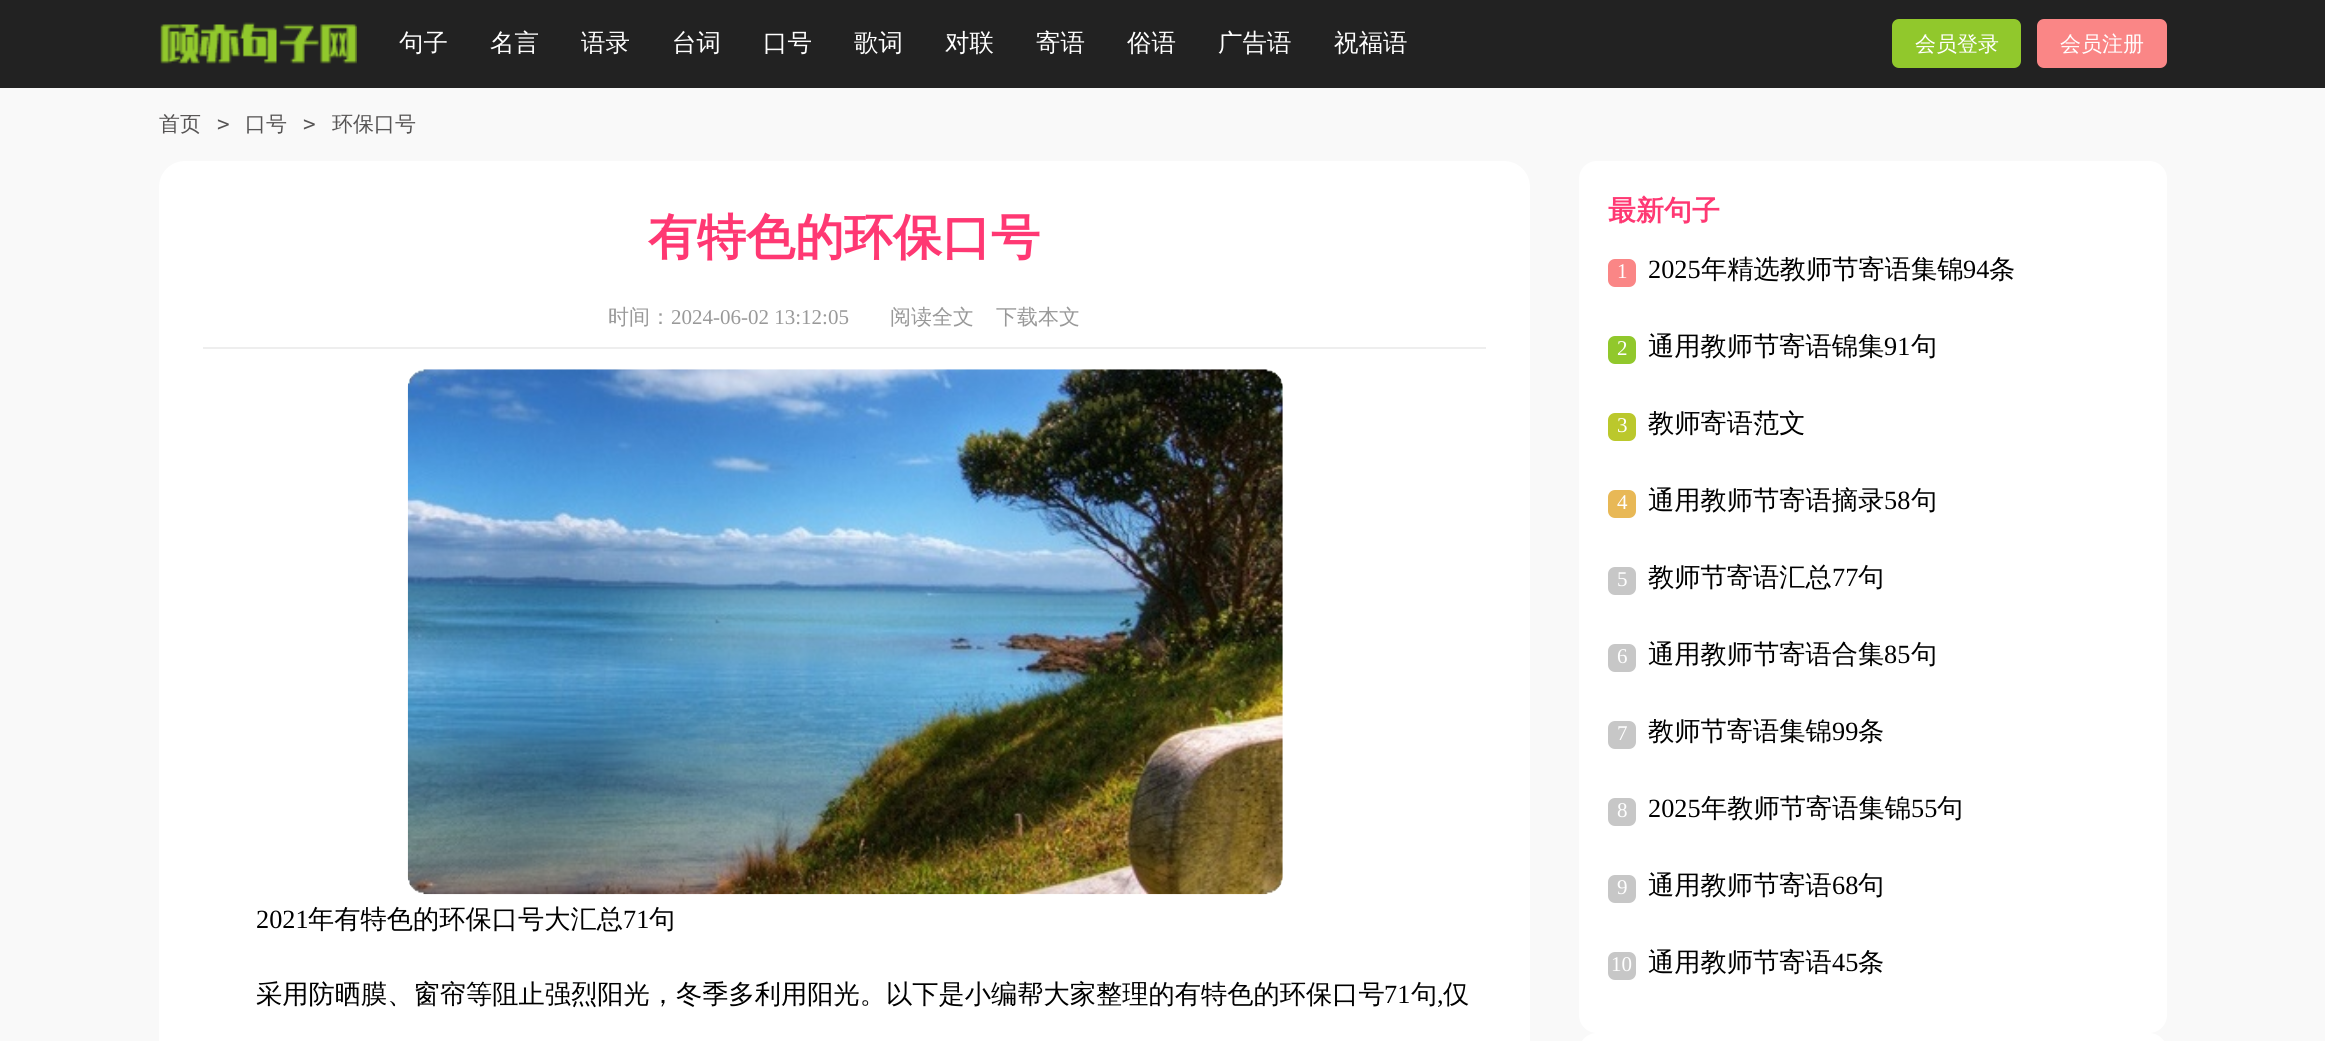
import math
import cairo



def rounded_rect(context, x, y, w, h, r):
    context.new_sub_path()
    for i, (u, v) in enumerate([(x + w - r, y + h - r), (x + r, y + h - r), (x + r, y + r), (x + w - r, y + r)]):
        context.arc(u, v, r, i * math.pi / 2, (i + 1) * math.pi / 2)
    context.close_path()


def draw_image(context, path, x, y, w, h):
    context.save()
    context.set_source_surface(cairo.ImageSurface.create_from_png(path), x, y)
    context.rectangle(x, y, w, h)
    context.fill()
    context.restore()


def draw(context):
    context.set_source_rgb(249 / 255, 249 / 255, 249 / 255)
    context.paint()
    context.set_source_rgb(34 / 255, 34 / 255, 34 / 255)
    context.rectangle(0, 0, 2325, 88)
    context.fill()
    draw_image(context, "images/1.png", 160, 22, 197, 42)
    context.set_source_rgb(145 / 255, 200 / 255, 44 / 255)
    rounded_rect(context, 1892, 19, 129, 49, 7)
    context.fill()
    context.set_source_rgb(250 / 255, 134 / 255, 134 / 255)
    rounded_rect(context, 2037, 19, 130, 49, 7)
    context.fill()
    context.set_source_rgb(1, 1, 1)
    rounded_rect(context, 159, 161, 1371, 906, 26)
    context.fill()
    context.set_source_rgb(238 / 255, 238 / 255, 238 / 255)
    context.rectangle(203, 347, 1283, 2)
    context.fill()
    draw_image(context, "images/2.png", 407, 369, 876, 526)
    context.set_source_rgb(1, 1, 1)
    rounded_rect(context, 1579, 161, 588, 872, 18)
    context.fill()
    context.set_source_rgb(250 / 255, 134 / 255, 134 / 255)
    rounded_rect(context, 1608, 259, 28, 28, 7)
    context.fill()
    context.set_source_rgb(145 / 255, 200 / 255, 44 / 255)
    rounded_rect(context, 1608, 336, 28, 28, 7)
    context.fill()
    context.set_source_rgb(187 / 255, 200 / 255, 44 / 255)
    rounded_rect(context, 1608, 413, 28, 28, 7)
    context.fill()
    context.set_source_rgb(232 / 255, 184 / 255, 86 / 255)
    rounded_rect(context, 1608, 490, 28, 28, 7)
    context.fill()
    context.set_source_rgb(199 / 255, 199 / 255, 199 / 255)
    rounded_rect(context, 1608, 567, 28, 28, 7)
    context.fill()
    rounded_rect(context, 1608, 644, 28, 28, 7)
    context.fill()
    rounded_rect(context, 1608, 721, 28, 28, 7)
    context.fill()
    rounded_rect(context, 1608, 798, 28, 28, 7)
    context.fill()
    rounded_rect(context, 1608, 875, 28, 28, 7)
    context.fill()
    rounded_rect(context, 1608, 952, 28, 28, 7)
    context.fill()
    context.set_source_rgb(1, 1, 1)
    rounded_rect(context, 1579, 1033, 588, 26, 18)
    context.fill()
    context.select_font_face("WenQuanYi Zen Hei Medium")
    context.set_font_size(24.5)
    context.move_to(399, 51)
    context.show_text("句子")
    context.move_to(490, 51)
    context.show_text("名言")
    context.move_to(581, 51)
    context.show_text("语录")
    context.move_to(672, 51)
    context.show_text("台词")
    context.move_to(763, 51)
    context.show_text("口号")
    context.move_to(854, 51)
    context.show_text("歌词")
    context.move_to(945, 51)
    context.show_text("对联")
    context.move_to(1036, 51)
    context.show_text("寄语")
    context.move_to(1127, 51)
    context.show_text("俗语")
    context.move_to(1218, 51)
    context.show_text("广告语")
    context.move_to(1334, 51)
    context.show_text("祝福语")
    context.set_font_size(21)
    context.move_to(1915, 51)
    context.show_text("会员登录")
    context.move_to(2060, 51)
    context.show_text("会员注册")
    context.set_source_rgb(86 / 255, 84 / 255, 84 / 255)
    context.move_to(159, 131)
    context.show_text("首页")
    context.select_font_face("DejaVu Sans Mono")
    context.move_to(217, 131)
    context.show_text(">")
    context.select_font_face("WenQuanYi Zen Hei Medium")
    context.move_to(245, 131)
    context.show_text("口号")
    context.select_font_face("DejaVu Sans Mono")
    context.move_to(303, 131)
    context.show_text(">")
    context.select_font_face("WenQuanYi Zen Hei Medium")
    context.move_to(332, 131)
    context.show_text("环保口号")
    context.select_font_face("WenQuanYi Zen Hei", cairo.FontSlant.NORMAL, cairo.FontWeight.BOLD)
    context.set_font_size(49)
    context.set_source_rgb(1, 56 / 255, 115 / 255)
    context.move_to(648, 254)
    context.show_text("有特色的环保口号")
    context.select_font_face("WenQuanYi Zen Hei Medium")
    context.set_font_size(21)
    context.set_source_rgb(153 / 255, 153 / 255, 153 / 255)
    context.move_to(608, 324)
    context.show_text("时间：")
    context.select_font_face("Liberation Serif")
    context.move_to(671, 324)
    context.show_text("2024-06-02 13:12:05")
    context.select_font_face("WenQuanYi Zen Hei Medium")
    context.move_to(890, 324)
    context.show_text("阅读全文")
    context.move_to(996, 324)
    context.show_text("下载本文")
    context.select_font_face("Liberation Serif")
    context.set_font_size(26.25)
    context.set_source_rgb(0, 0, 0)
    context.move_to(256, 928)
    context.show_text("2021")
    context.select_font_face("WenQuanYi Zen Hei Medium")
    context.move_to(308, 928)
    context.show_text("年有特色的环保口号大汇总")
    context.select_font_face("Liberation Serif")
    context.move_to(623, 928)
    context.show_text("71")
    context.select_font_face("WenQuanYi Zen Hei Medium")
    context.move_to(649, 928)
    context.show_text("句")
    context.move_to(256, 1003)
    context.show_text("采用防晒膜、窗帘等阻止强烈阳光，冬季多利用阳光。以下是小编帮大家整理的有特色的环保口号")
    context.select_font_face("Liberation Serif")
    context.move_to(1384, 1003)
    context.show_text("71")
    context.select_font_face("WenQuanYi Zen Hei Medium")
    context.move_to(1411, 1003)
    context.show_text("句")
    context.select_font_face("Liberation Serif")
    context.move_to(1437, 1003)
    context.show_text(",")
    context.select_font_face("WenQuanYi Zen Hei Medium")
    context.move_to(1443, 1003)
    context.show_text("仅")
    context.select_font_face("WenQuanYi Zen Hei", cairo.FontSlant.NORMAL, cairo.FontWeight.BOLD)
    context.set_font_size(28)
    context.set_source_rgb(1, 56 / 255, 115 / 255)
    context.move_to(1608, 220)
    context.show_text("最新句子")
    context.select_font_face("Liberation Serif")
    context.set_font_size(21)
    context.set_source_rgb(1, 1, 1)
    context.move_to(1617, 278)
    context.show_text("1")
    context.set_font_size(26.25)
    context.set_source_rgb(0, 0, 0)
    context.move_to(1648, 278)
    context.show_text("2025")
    context.select_font_face("WenQuanYi Zen Hei Medium")
    context.move_to(1701, 278)
    context.show_text("年精选教师节寄语集锦")
    context.select_font_face("Liberation Serif")
    context.move_to(1963, 278)
    context.show_text("94")
    context.select_font_face("WenQuanYi Zen Hei Medium")
    context.move_to(1989, 278)
    context.show_text("条")
    context.select_font_face("Liberation Serif")
    context.set_font_size(21)
    context.set_source_rgb(1, 1, 1)
    context.move_to(1617, 355)
    context.show_text("2")
    context.select_font_face("WenQuanYi Zen Hei Medium")
    context.set_font_size(26.25)
    context.set_source_rgb(0, 0, 0)
    context.move_to(1648, 355)
    context.show_text("通用教师节寄语锦集")
    context.select_font_face("Liberation Serif")
    context.move_to(1884, 355)
    context.show_text("91")
    context.select_font_face("WenQuanYi Zen Hei Medium")
    context.move_to(1911, 355)
    context.show_text("句")
    context.select_font_face("Liberation Serif")
    context.set_font_size(21)
    context.set_source_rgb(1, 1, 1)
    context.move_to(1617, 432)
    context.show_text("3")
    context.select_font_face("WenQuanYi Zen Hei Medium")
    context.set_font_size(26.25)
    context.set_source_rgb(0, 0, 0)
    context.move_to(1648, 432)
    context.show_text("教师寄语范文")
    context.select_font_face("Liberation Serif")
    context.set_font_size(21)
    context.set_source_rgb(1, 1, 1)
    context.move_to(1617, 509)
    context.show_text("4")
    context.select_font_face("WenQuanYi Zen Hei Medium")
    context.set_font_size(26.25)
    context.set_source_rgb(0, 0, 0)
    context.move_to(1648, 509)
    context.show_text("通用教师节寄语摘录")
    context.select_font_face("Liberation Serif")
    context.move_to(1884, 509)
    context.show_text("58")
    context.select_font_face("WenQuanYi Zen Hei Medium")
    context.move_to(1911, 509)
    context.show_text("句")
    context.select_font_face("Liberation Serif")
    context.set_font_size(21)
    context.set_source_rgb(1, 1, 1)
    context.move_to(1617, 586)
    context.show_text("5")
    context.select_font_face("WenQuanYi Zen Hei Medium")
    context.set_font_size(26.25)
    context.set_source_rgb(0, 0, 0)
    context.move_to(1648, 586)
    context.show_text("教师节寄语汇总")
    context.select_font_face("Liberation Serif")
    context.move_to(1832, 586)
    context.show_text("77")
    context.select_font_face("WenQuanYi Zen Hei Medium")
    context.move_to(1858, 586)
    context.show_text("句")
    context.select_font_face("Liberation Serif")
    context.set_font_size(21)
    context.set_source_rgb(1, 1, 1)
    context.move_to(1617, 663)
    context.show_text("6")
    context.select_font_face("WenQuanYi Zen Hei Medium")
    context.set_font_size(26.25)
    context.set_source_rgb(0, 0, 0)
    context.move_to(1648, 663)
    context.show_text("通用教师节寄语合集")
    context.select_font_face("Liberation Serif")
    context.move_to(1884, 663)
    context.show_text("85")
    context.select_font_face("WenQuanYi Zen Hei Medium")
    context.move_to(1911, 663)
    context.show_text("句")
    context.select_font_face("Liberation Serif")
    context.set_font_size(21)
    context.set_source_rgb(1, 1, 1)
    context.move_to(1617, 740)
    context.show_text("7")
    context.select_font_face("WenQuanYi Zen Hei Medium")
    context.set_font_size(26.25)
    context.set_source_rgb(0, 0, 0)
    context.move_to(1648, 740)
    context.show_text("教师节寄语集锦")
    context.select_font_face("Liberation Serif")
    context.move_to(1832, 740)
    context.show_text("99")
    context.select_font_face("WenQuanYi Zen Hei Medium")
    context.move_to(1858, 740)
    context.show_text("条")
    context.select_font_face("Liberation Serif")
    context.set_font_size(21)
    context.set_source_rgb(1, 1, 1)
    context.move_to(1617, 817)
    context.show_text("8")
    context.set_font_size(26.25)
    context.set_source_rgb(0, 0, 0)
    context.move_to(1648, 817)
    context.show_text("2025")
    context.select_font_face("WenQuanYi Zen Hei Medium")
    context.move_to(1701, 817)
    context.show_text("年教师节寄语集锦")
    context.select_font_face("Liberation Serif")
    context.move_to(1911, 817)
    context.show_text("55")
    context.select_font_face("WenQuanYi Zen Hei Medium")
    context.move_to(1937, 817)
    context.show_text("句")
    context.select_font_face("Liberation Serif")
    context.set_font_size(21)
    context.set_source_rgb(1, 1, 1)
    context.move_to(1617, 894)
    context.show_text("9")
    context.select_font_face("WenQuanYi Zen Hei Medium")
    context.set_font_size(26.25)
    context.set_source_rgb(0, 0, 0)
    context.move_to(1648, 894)
    context.show_text("通用教师节寄语")
    context.select_font_face("Liberation Serif")
    context.move_to(1832, 894)
    context.show_text("68")
    context.select_font_face("WenQuanYi Zen Hei Medium")
    context.move_to(1858, 894)
    context.show_text("句")
    context.select_font_face("Liberation Serif")
    context.set_font_size(21)
    context.set_source_rgb(1, 1, 1)
    context.move_to(1611, 971)
    context.show_text("10")
    context.select_font_face("WenQuanYi Zen Hei Medium")
    context.set_font_size(26.25)
    context.set_source_rgb(0, 0, 0)
    context.move_to(1648, 971)
    context.show_text("通用教师节寄语")
    context.select_font_face("Liberation Serif")
    context.move_to(1832, 971)
    context.show_text("45")
    context.select_font_face("WenQuanYi Zen Hei Medium")
    context.move_to(1858, 971)
    context.show_text("条")


surface = cairo.ImageSurface(cairo.Format.RGB24, 2325, 1041)
context = cairo.Context(surface)
options = cairo.FontOptions()
options.set_hint_metrics(cairo.HintMetrics.OFF)
options.set_hint_style(cairo.HintStyle.NONE)
context.set_font_options(options)
context.set_miter_limit(4)
draw(context)
surface.write_to_png("out.png")
